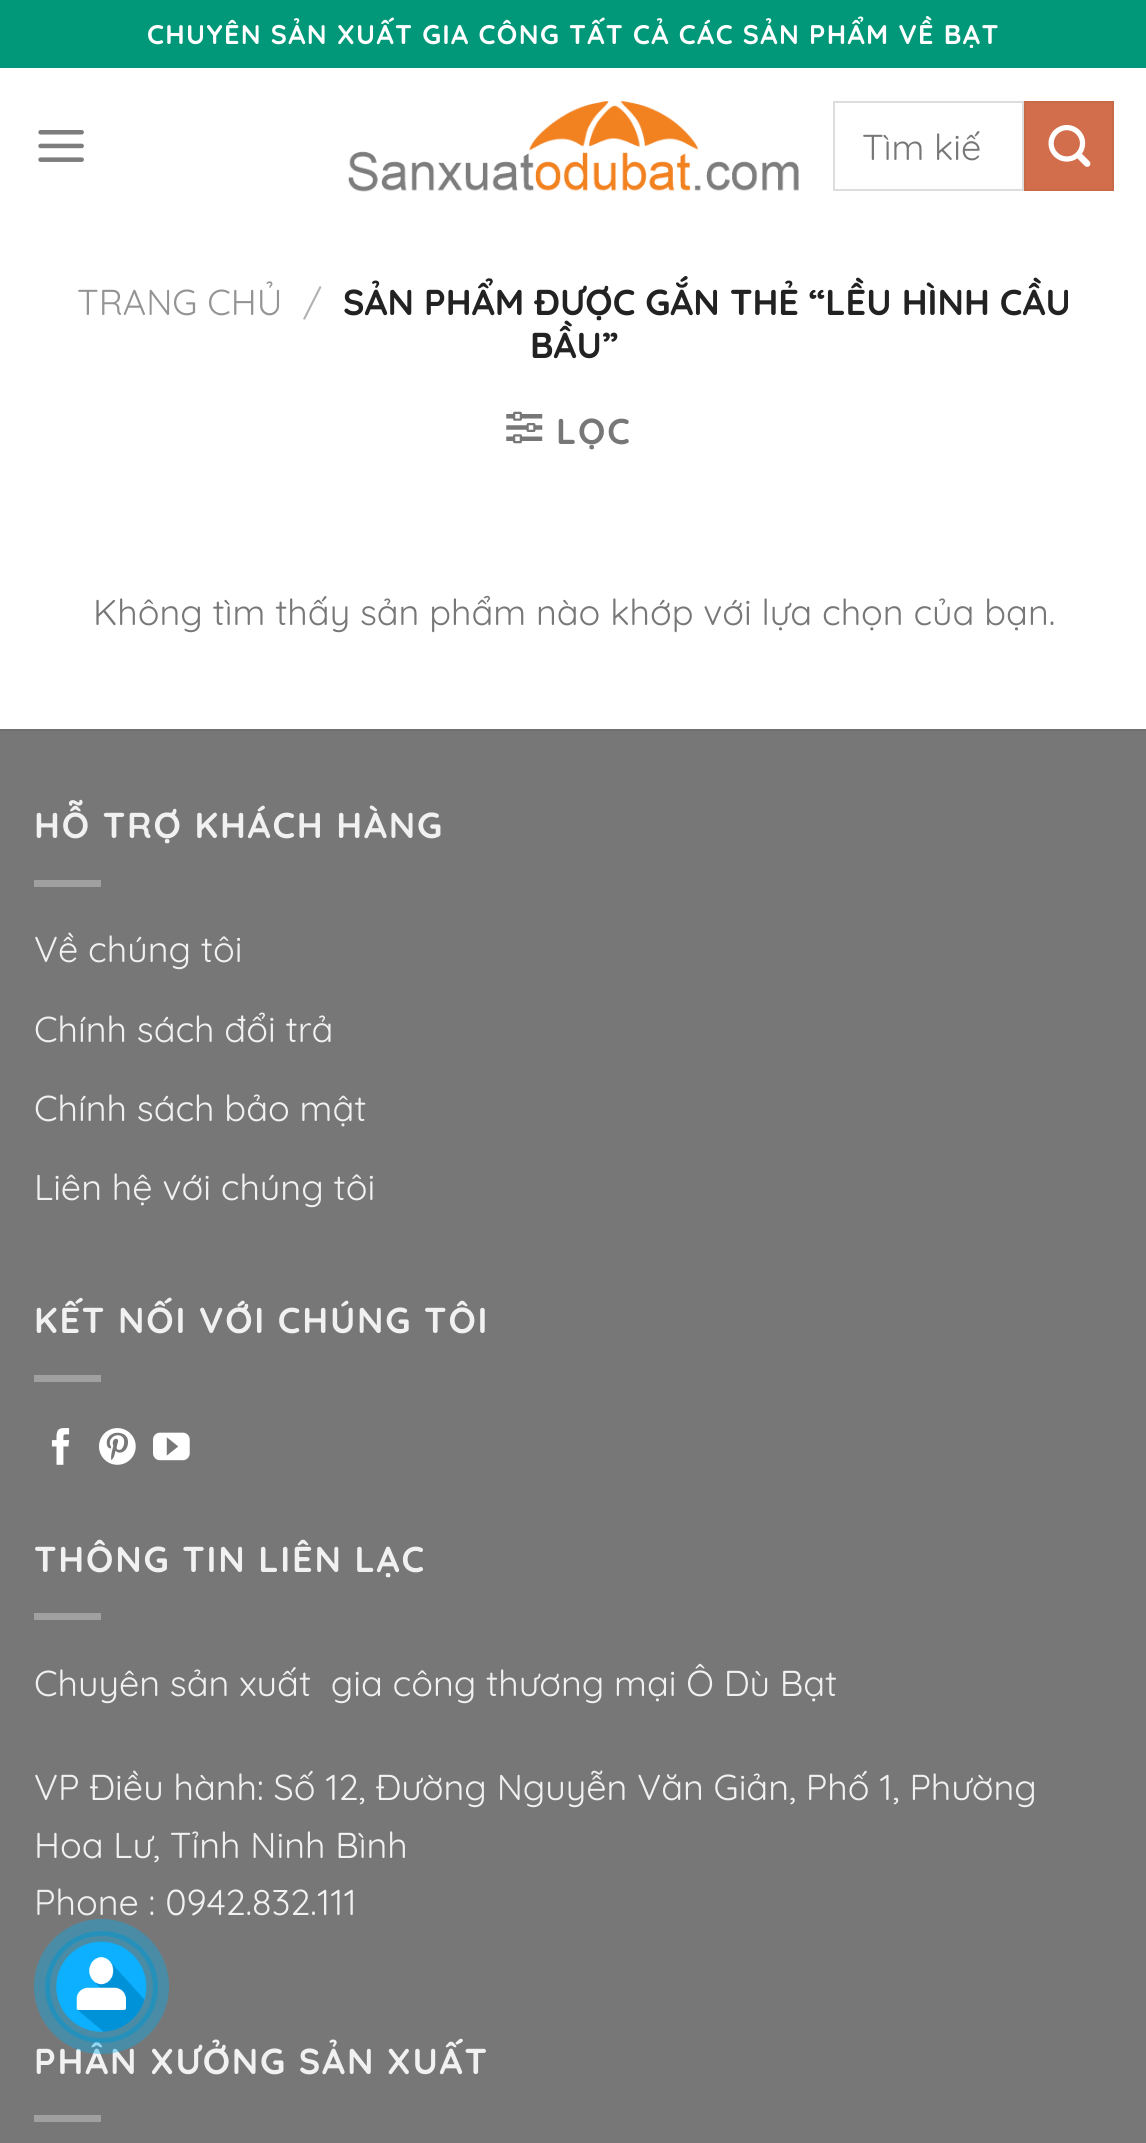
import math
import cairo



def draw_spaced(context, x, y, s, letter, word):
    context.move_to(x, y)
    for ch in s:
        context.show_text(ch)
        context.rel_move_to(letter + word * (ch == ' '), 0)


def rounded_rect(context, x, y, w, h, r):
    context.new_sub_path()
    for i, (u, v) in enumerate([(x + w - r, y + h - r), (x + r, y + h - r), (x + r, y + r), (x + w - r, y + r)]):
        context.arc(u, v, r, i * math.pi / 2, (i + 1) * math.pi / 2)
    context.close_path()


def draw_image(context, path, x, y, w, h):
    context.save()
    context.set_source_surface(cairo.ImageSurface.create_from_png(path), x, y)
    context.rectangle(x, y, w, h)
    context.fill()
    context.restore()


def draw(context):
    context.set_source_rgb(1, 1, 1)
    context.paint()
    context.set_source_rgb(1 / 255, 151 / 255, 121 / 255)
    context.rectangle(0, 0, 1146, 68)
    context.fill()
    draw_image(context, "images/1.png", 38, 130, 46, 32)
    draw_image(context, "images/2.png", 348, 101, 451, 91)
    context.rectangle(834, 102, 189, 88)
    context.set_source_rgb(221 / 255, 221 / 255, 221 / 255)
    context.stroke()
    context.set_source_rgb(210 / 255, 110 / 255, 75 / 255)
    context.rectangle(1025, 102, 88, 88)
    context.fill_preserve()
    context.set_source_rgb(200 / 255, 105 / 255, 71 / 255)
    context.stroke()
    draw_image(context, "images/3.png", 1048, 125, 43, 42)
    draw_image(context, "images/4.png", 506, 411, 37, 33)
    context.set_source_rgb(119 / 255, 119 / 255, 119 / 255)
    context.rectangle(0, 731, 1146, 1412)
    context.fill()
    context.set_source_rgb(113 / 255, 113 / 255, 113 / 255)
    context.rectangle(0, 729, 1146, 2)
    context.fill()
    context.set_source_rgb(160 / 255, 160 / 255, 160 / 255)
    context.rectangle(34, 880, 67, 7)
    context.fill()
    context.rectangle(34, 1375, 67, 7)
    context.fill()
    draw_image(context, "images/5.png", 51, 1428, 19, 37)
    draw_image(context, "images/6.png", 99, 1428, 37, 37)
    draw_image(context, "images/7.png", 153, 1432, 37, 29)
    context.rectangle(34, 1613, 67, 7)
    context.fill()
    context.rectangle(34, 2115, 67, 7)
    context.fill()
    context.select_font_face("Quicksand", cairo.FontSlant.NORMAL, cairo.FontWeight.BOLD)
    context.set_font_size(27)
    context.set_source_rgb(1, 1, 1)
    draw_spaced(context, 147, 44, "CHUYÊN SẢN XUẤT GIA CÔNG TẤT CẢ CÁC SẢN PHẨM VỀ BẠT", 1.35, 0)
    context.select_font_face("Quicksand")
    context.set_font_size(36)
    context.set_source_rgb(119 / 255, 119 / 255, 119 / 255)
    context.move_to(862, 160)
    context.show_text("Tìm kiế")
    context.set_source_rgb(148 / 255, 148 / 255, 148 / 255)
    context.move_to(77, 315)
    context.show_text("TRANG CHỦ")
    context.set_source_rgb(178 / 255, 178 / 255, 178 / 255)
    context.move_to(303, 315)
    context.show_text("/")
    context.select_font_face("Quicksand", cairo.FontSlant.NORMAL, cairo.FontWeight.BOLD)
    context.set_source_rgb(34 / 255, 34 / 255, 34 / 255)
    context.move_to(343, 315)
    context.show_text("SẢN PHẨM ĐƯỢC GẮN THẺ “LỀU HÌNH CẦU")
    context.move_to(530, 358)
    context.show_text("BẦU”")
    context.set_source_rgb(119 / 255, 119 / 255, 119 / 255)
    draw_spaced(context, 556, 444, "LỌC", 1.8, 0)
    context.select_font_face("Quicksand")
    context.move_to(93, 625)
    context.show_text("Không tìm thấy sản phẩm nào khớp với lựa chọn của bạn.")
    context.select_font_face("Quicksand", cairo.FontSlant.NORMAL, cairo.FontWeight.BOLD)
    context.set_source_rgb(241 / 255, 241 / 255, 241 / 255)
    draw_spaced(context, 34, 838, "HỖ TRỢ KHÁCH HÀNG", 1.8, 0)
    context.select_font_face("Quicksand")
    context.move_to(34, 962)
    context.show_text("Về chúng tôi")
    context.move_to(34, 1042)
    context.show_text("Chính sách đổi trả")
    context.move_to(34, 1121)
    context.show_text("Chính sách bảo mật")
    context.move_to(34, 1200)
    context.show_text("Liên hệ với chúng tôi")
    context.select_font_face("Quicksand", cairo.FontSlant.NORMAL, cairo.FontWeight.BOLD)
    draw_spaced(context, 34, 1333, "KẾT NỐI VỚI CHÚNG TÔI", 1.8, 0)
    draw_spaced(context, 34, 1572, "THÔNG TIN LIÊN LẠC", 1.8, 0)
    context.select_font_face("Quicksand")
    context.move_to(34, 1696)
    context.show_text("Chuyên sản xuất  gia công thương mại Ô Dù Bạt")
    context.move_to(34, 1800)
    context.show_text("VP Điều hành: Số 12, Đường Nguyễn Văn Giản, Phố 1, Phường")
    context.move_to(34, 1858)
    context.show_text("Hoa Lư, Tỉnh Ninh Bình")
    context.move_to(34, 1915)
    context.show_text("Phone : 0942.832.111")
    context.select_font_face("Quicksand", cairo.FontSlant.NORMAL, cairo.FontWeight.BOLD)
    draw_spaced(context, 34, 2074, "PHÂN XƯỞNG SẢN XUẤT", 1.8, 0)
    rounded_rect(context, 47.5, 1933.5, 108, 107, 53.5)
    context.set_source_rgba(0, 137 / 255, 185 / 255, 0.5)
    context.set_line_width(5)
    context.stroke()
    context.set_source_rgba(0, 175 / 255, 242 / 255, 0.38)
    context.arc(101.5, 1986.5, 67.5, 0, 2 * math.pi)
    context.fill()
    draw_image(context, "images/8.png", 56, 1941, 91, 91)


surface = cairo.ImageSurface(cairo.Format.RGB24, 1146, 2143)
context = cairo.Context(surface)
options = cairo.FontOptions()
options.set_hint_metrics(cairo.HintMetrics.OFF)
options.set_hint_style(cairo.HintStyle.NONE)
context.set_font_options(options)
context.set_miter_limit(4)
draw(context)
surface.write_to_png("out.png")
